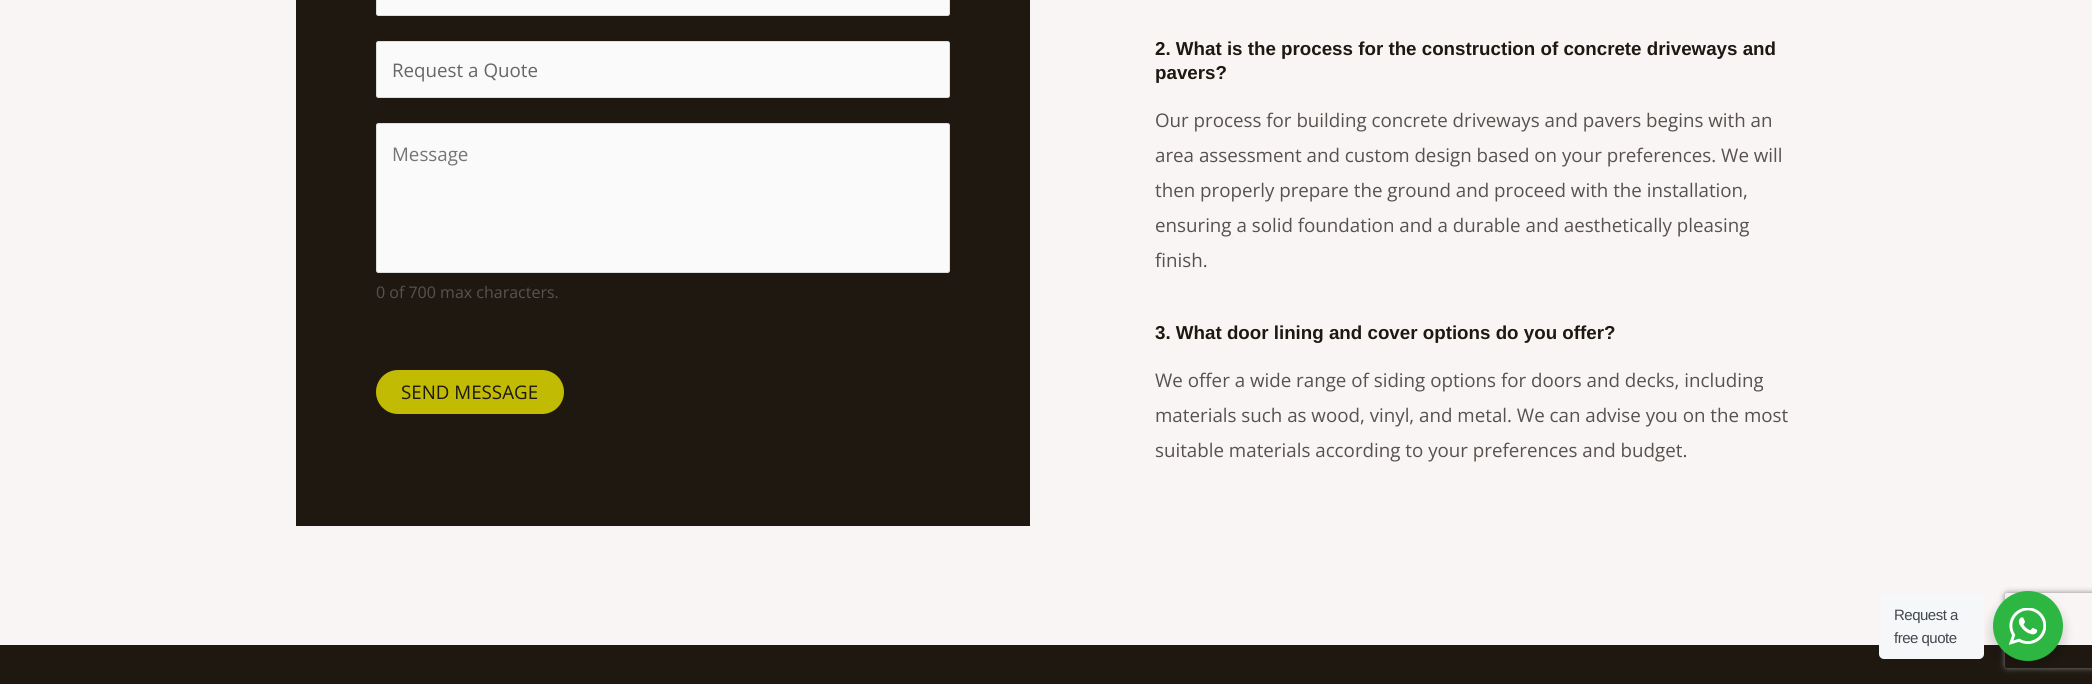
import math
import cairo



def draw_spaced(context, x, y, s, letter, word):
    context.move_to(x, y)
    for ch in s:
        context.show_text(ch)
        context.rel_move_to(letter + word * (ch == ' '), 0)


def rounded_rect(context, x, y, w, h, r):
    context.new_sub_path()
    for i, (u, v) in enumerate([(x + w - r, y + h - r), (x + r, y + h - r), (x + r, y + r), (x + w - r, y + r)]):
        context.arc(u, v, r, i * math.pi / 2, (i + 1) * math.pi / 2)
    context.close_path()


def draw_shadow(context, x, y, w, h, r, blur, alpha):
    context.push_group_with_content(cairo.Content.ALPHA)
    context.set_operator(cairo.Operator.SOURCE)
    for i in range(15, -16, -2):
        e = blur * i / 6
        if min(w, h) + 2 * e > 0:
            context.set_source_rgba(0, 0, 0, alpha * math.erfc((i - 1) / 8.5) / 2)
            rounded_rect(context, x - e, y - e, w + 2 * e, h + 2 * e, max(0, min(r + e + blur * .6, min(w, h) / 2 + e)))
            context.fill()
    context.mask(context.pop_group())


def draw_image(context, path, x, y, w, h):
    context.save()
    context.set_source_surface(cairo.ImageSurface.create_from_png(path), x, y)
    context.rectangle(x, y, w, h)
    context.fill()
    context.restore()


def draw(context):
    context.set_source_rgb(248 / 255, 245 / 255, 244 / 255)
    context.paint()
    context.set_source_rgb(30 / 255, 24 / 255, 16 / 255)
    context.rectangle(296, 0, 734, 526)
    context.fill()
    context.set_source_rgb(250 / 255, 250 / 255, 250 / 255)
    rounded_rect(context, 376.5, -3.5, 573, 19, 2)
    context.fill_preserve()
    context.set_source_rgb(221 / 255, 221 / 255, 221 / 255)
    context.set_line_width(1)
    context.stroke()
    context.set_source_rgb(250 / 255, 250 / 255, 250 / 255)
    rounded_rect(context, 376.5, 41.5, 573, 56, 2)
    context.fill_preserve()
    context.set_source_rgb(221 / 255, 221 / 255, 221 / 255)
    context.stroke()
    context.set_source_rgb(250 / 255, 250 / 255, 250 / 255)
    rounded_rect(context, 376.5, 123.5, 573, 149, 2)
    context.fill_preserve()
    context.set_source_rgb(221 / 255, 221 / 255, 221 / 255)
    context.stroke()
    context.set_source_rgb(194 / 255, 187 / 255, 4 / 255)
    rounded_rect(context, 376, 370, 188, 44, 22)
    context.fill()
    context.set_source_rgb(30 / 255, 24 / 255, 16 / 255)
    context.rectangle(0, 645, 2092, 39)
    context.fill()
    context.set_source_rgb(0, 0, 0)
    draw_shadow(context, 1990, 596, 75, 75, 37.5, 5, 0.14)
    context.set_source_rgb(245 / 255, 247 / 255, 249 / 255)
    rounded_rect(context, 1879, 594, 105, 65, 5)
    context.fill()
    context.save()
    context.set_fill_rule(cairo.FillRule.EVEN_ODD)
    context.new_path()
    context.move_to(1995, 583)
    context.line_to(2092, 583)
    context.line_to(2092, 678)
    context.line_to(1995, 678)
    context.close_path()
    context.move_to(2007.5, 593)
    context.line_to(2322.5, 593)
    context.curve_to(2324, 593, 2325, 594, 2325, 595.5)
    context.line_to(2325, 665.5)
    context.curve_to(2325, 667, 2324, 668, 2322.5, 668)
    context.line_to(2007.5, 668)
    context.curve_to(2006, 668, 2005, 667, 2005, 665.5)
    context.line_to(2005, 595.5)
    context.curve_to(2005, 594, 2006, 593, 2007.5, 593)
    context.close_path()
    context.clip()
    context.set_source_rgb(128 / 255, 128 / 255, 128 / 255)
    draw_shadow(context, 2005, 593, 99, 75, 2.5, 3, 1)
    context.restore()
    context.set_source_rgb(45 / 255, 183 / 255, 66 / 255)
    context.arc(2028, 626, 35, 0, 2 * math.pi)
    context.fill()
    draw_image(context, "images/1.png", 2009, 608, 37, 37)
    context.select_font_face("Open Sans")
    context.set_font_size(18.75)
    context.set_source_rgb(102 / 255, 102 / 255, 102 / 255)
    context.move_to(392, 77)
    context.show_text("Request a Quote")
    context.set_source_rgb(117 / 255, 117 / 255, 117 / 255)
    context.move_to(392, 161)
    context.show_text("Message")
    context.set_font_size(16)
    context.set_source_rgb(87 / 255, 82 / 255, 80 / 255)
    context.move_to(376, 298)
    context.show_text("0 of 700 max characters.")
    context.set_font_size(18.75)
    context.set_source_rgb(30 / 255, 24 / 255, 16 / 255)
    context.move_to(401, 399)
    context.show_text("SEND MESSAGE")
    context.select_font_face("Liberation Sans", cairo.FontSlant.NORMAL, cairo.FontWeight.BOLD)
    context.move_to(1155, 55)
    context.show_text("2. What is the process for the construction of concrete driveways and")
    context.move_to(1155, 79)
    context.show_text("pavers?")
    context.select_font_face("Open Sans")
    context.set_source_rgb(87 / 255, 82 / 255, 80 / 255)
    context.move_to(1155, 127)
    context.show_text("Our process for building concrete driveways and pavers begins with an")
    context.move_to(1155, 162)
    context.show_text("area assessment and custom design based on your preferences. We will")
    context.move_to(1155, 197)
    context.show_text("then properly prepare the ground and proceed with the installation,")
    context.move_to(1155, 232)
    context.show_text("ensuring a solid foundation and a durable and aesthetically pleasing")
    context.move_to(1155, 267)
    context.show_text("finish.")
    context.select_font_face("Liberation Sans", cairo.FontSlant.NORMAL, cairo.FontWeight.BOLD)
    context.set_source_rgb(30 / 255, 24 / 255, 16 / 255)
    context.move_to(1155, 339)
    context.show_text("3. What door lining and cover options do you offer?")
    context.select_font_face("Open Sans")
    context.set_source_rgb(87 / 255, 82 / 255, 80 / 255)
    context.move_to(1155, 387)
    context.show_text("We offer a wide range of siding options for doors and decks, including")
    context.move_to(1155, 422)
    context.show_text("materials such as wood, vinyl, and metal. We can advise you on the most")
    context.move_to(1155, 457)
    context.show_text("suitable materials according to your preferences and budget.")
    context.select_font_face("Liberation Sans")
    context.set_font_size(15)
    context.set_source_rgb(67 / 255, 71 / 255, 78 / 255)
    draw_spaced(context, 1894, 620, "Request a", -0.5, 0)
    draw_spaced(context, 1894, 643, "free quote", -0.5, 0)


surface = cairo.ImageSurface(cairo.Format.RGB24, 2092, 684)
context = cairo.Context(surface)
options = cairo.FontOptions()
options.set_hint_metrics(cairo.HintMetrics.OFF)
options.set_hint_style(cairo.HintStyle.NONE)
context.set_font_options(options)
context.set_miter_limit(4)
draw(context)
surface.write_to_png("out.png")
